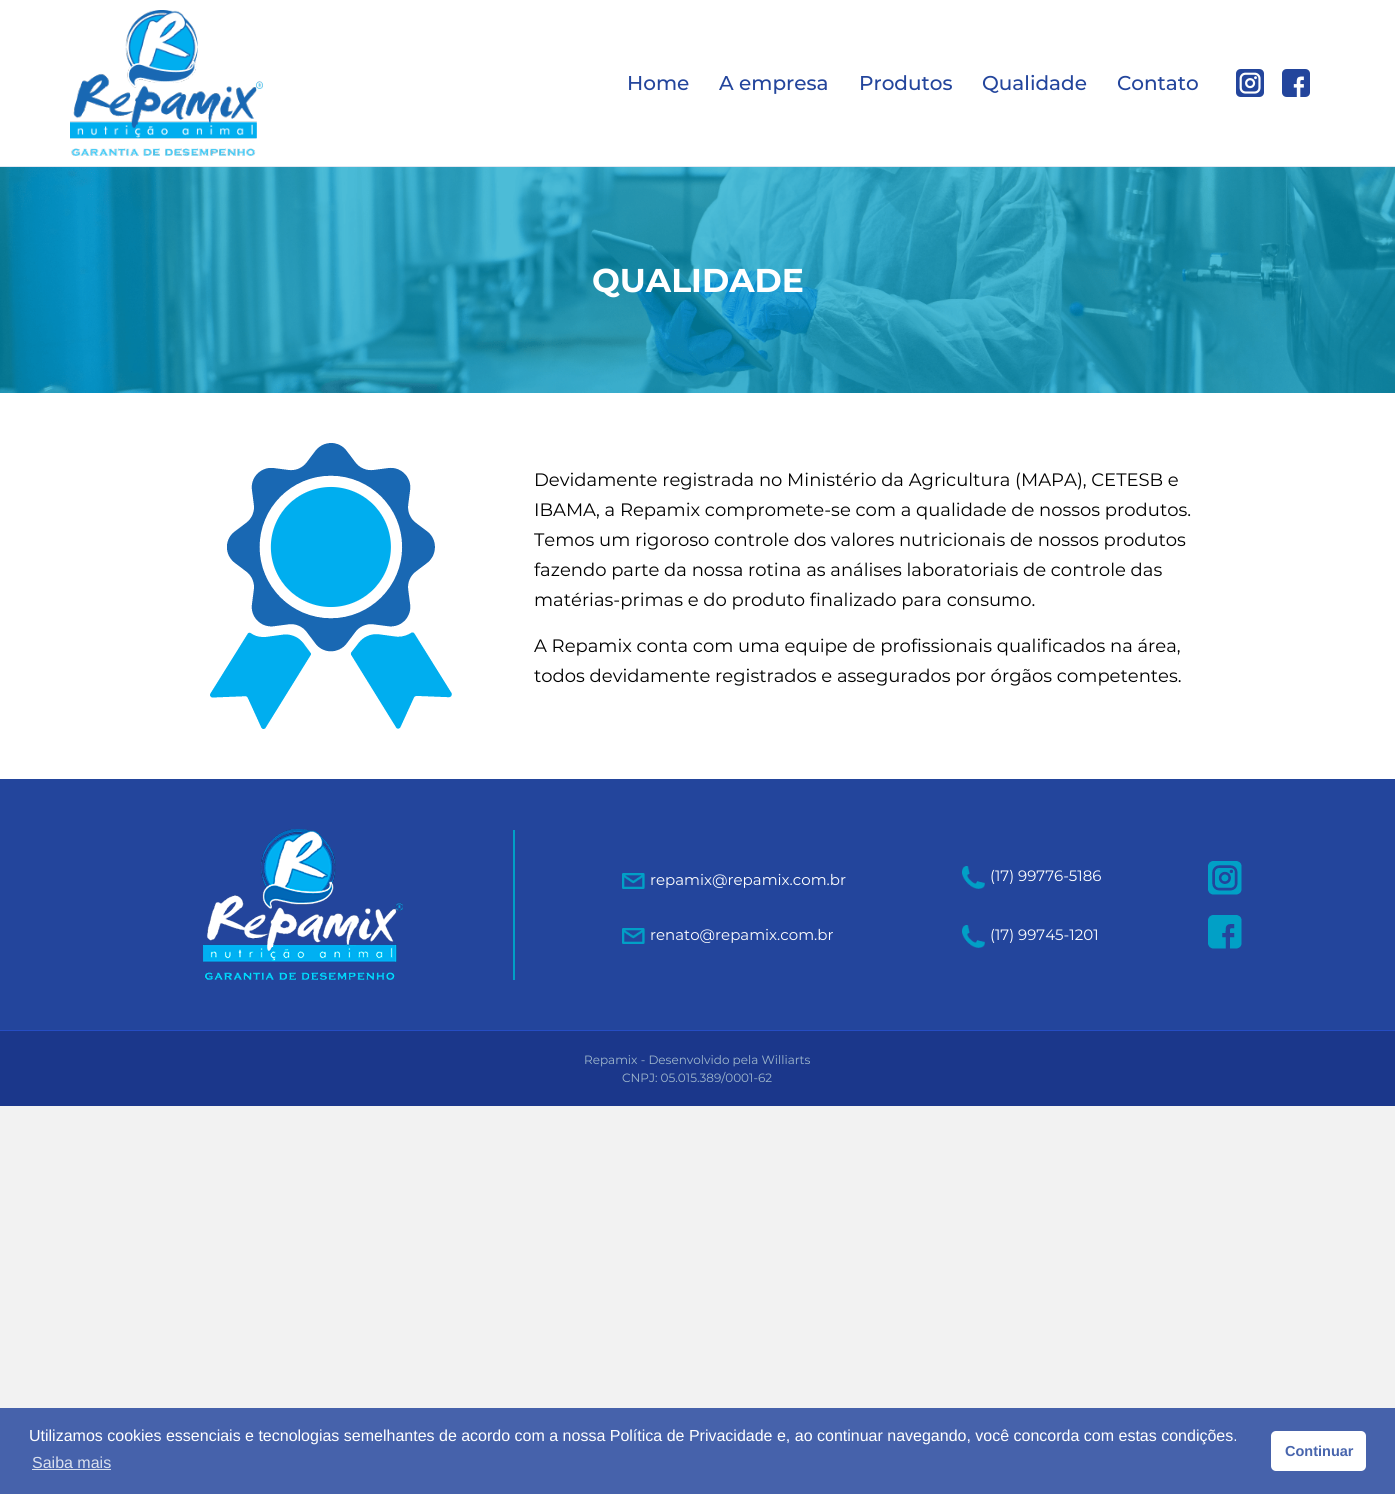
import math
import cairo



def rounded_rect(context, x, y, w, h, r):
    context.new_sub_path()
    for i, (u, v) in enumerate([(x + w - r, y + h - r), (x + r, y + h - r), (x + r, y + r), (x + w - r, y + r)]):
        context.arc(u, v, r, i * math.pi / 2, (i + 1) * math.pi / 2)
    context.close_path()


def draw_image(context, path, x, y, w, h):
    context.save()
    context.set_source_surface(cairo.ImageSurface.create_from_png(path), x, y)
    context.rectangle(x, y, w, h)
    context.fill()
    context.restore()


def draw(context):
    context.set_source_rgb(242 / 255, 242 / 255, 242 / 255)
    context.paint()
    context.set_source_rgb(1, 1, 1)
    context.rectangle(0, 0, 1395, 166)
    context.fill()
    context.set_source_rgb(226 / 255, 231 / 255, 242 / 255)
    context.rectangle(0, 166, 1395, 1)
    context.fill()
    draw_image(context, "images/1.png", 70, 10, 193, 146)
    draw_image(context, "images/2.png", 1236, 69, 28, 28)
    draw_image(context, "images/3.png", 1282, 69, 28, 28)
    context.set_source_rgb(1, 1, 1)
    context.rectangle(0, 393, 1395, 386)
    context.fill()
    draw_image(context, "images/4.png", 0, 167, 1395, 226)
    draw_image(context, "images/5.png", 210, 443, 242, 286)
    context.set_source_rgb(35 / 255, 69 / 255, 156 / 255)
    context.rectangle(0, 779, 1395, 251)
    context.fill()
    draw_image(context, "images/6.png", 203, 829, 200, 151)
    context.set_source_rgb(1 / 255, 160 / 255, 198 / 255)
    context.rectangle(513, 830, 2, 150)
    context.fill()
    draw_image(context, "images/7.png", 622, 873, 23, 16)
    draw_image(context, "images/7.png", 622, 928, 23, 16)
    draw_image(context, "images/8.png", 962, 866, 23, 23)
    draw_image(context, "images/8.png", 962, 925, 23, 23)
    draw_image(context, "images/9.png", 1208, 861, 34, 34)
    draw_image(context, "images/10.png", 1208, 915, 34, 34)
    context.set_source_rgb(27 / 255, 55 / 255, 139 / 255)
    context.rectangle(0, 1031, 1395, 75)
    context.fill()
    context.set_source_rgb(38 / 255, 77 / 255, 195 / 255)
    context.rectangle(0, 1030, 1395, 1)
    context.fill()
    context.set_source_rgb(70 / 255, 98 / 255, 171 / 255)
    context.rectangle(0, 1408, 1395, 86)
    context.fill()
    context.set_source_rgb(218 / 255, 224 / 255, 238 / 255)
    context.rectangle(32, 1469, 79, 1)
    context.fill()
    context.set_source_rgb(1, 1, 1)
    rounded_rect(context, 1271, 1431, 95, 40, 5)
    context.fill()
    context.select_font_face("Montserrat Medium")
    context.set_font_size(20)
    context.set_source_rgb(35 / 255, 69 / 255, 156 / 255)
    context.move_to(627, 90)
    context.show_text("Home")
    context.move_to(719, 90)
    context.show_text("A empresa")
    context.move_to(859, 90)
    context.show_text("Produtos")
    context.move_to(982, 90)
    context.show_text("Qualidade")
    context.move_to(1117, 90)
    context.show_text("Contato")
    context.select_font_face("Montserrat", cairo.FontSlant.NORMAL, cairo.FontWeight.BOLD)
    context.set_font_size(33)
    context.set_source_rgb(1, 1, 1)
    context.move_to(592, 292)
    context.show_text("QUALIDADE")
    context.select_font_face("Montserrat")
    context.set_font_size(18)
    context.set_source_rgb(0, 0, 0)
    context.move_to(534, 486)
    context.show_text("Devidamente registrada no Ministério da Agricultura (MAPA), CETESB e")
    context.move_to(534, 516)
    context.show_text("IBAMA, a Repamix compromete-se com a qualidade de nossos produtos.")
    context.move_to(534, 546)
    context.show_text("Temos um rigoroso controle dos valores nutricionais de nossos produtos")
    context.move_to(534, 576)
    context.show_text("fazendo parte da nossa rotina as análises laboratoriais de controle das")
    context.move_to(534, 606)
    context.show_text("matérias-primas e do produto finalizado para consumo.")
    context.move_to(534, 652)
    context.show_text("A Repamix conta com uma equipe de profissionais qualificados na área,")
    context.move_to(534, 682)
    context.show_text("todos devidamente registrados e assegurados por órgãos competentes.")
    context.set_font_size(15)
    context.set_source_rgb(1, 1, 1)
    context.move_to(650, 885)
    context.show_text("repamix@repamix.com.br")
    context.move_to(650, 940)
    context.show_text("renato@repamix.com.br")
    context.move_to(990, 881)
    context.show_text("(17) 99776-5186")
    context.move_to(990, 940)
    context.show_text("(17) 99745-1201")
    context.set_font_size(12)
    context.set_source_rgb(159 / 255, 183 / 255, 204 / 255)
    context.move_to(584, 1064)
    context.show_text("Repamix - Desenvolvido pela Williarts")
    context.move_to(622, 1082)
    context.show_text("CNPJ: 05.015.389/0001-62")
    context.select_font_face("Liberation Sans")
    context.set_font_size(16)
    context.set_source_rgb(1, 1, 1)
    context.move_to(29, 1441)
    context.show_text("Utilizamos cookies essenciais e tecnologias semelhantes de acordo com a nossa Política de Privacidade e, ao continuar navegando, você concorda com estas condições.")
    context.set_source_rgb(218 / 255, 224 / 255, 238 / 255)
    context.move_to(32, 1468)
    context.show_text("Saiba mais")
    context.select_font_face("Liberation Sans", cairo.FontSlant.NORMAL, cairo.FontWeight.BOLD)
    context.set_font_size(14.5)
    context.set_source_rgb(72 / 255, 101 / 255, 173 / 255)
    context.move_to(1285, 1456)
    context.show_text("Continuar")


surface = cairo.ImageSurface(cairo.Format.RGB24, 1395, 1494)
context = cairo.Context(surface)
options = cairo.FontOptions()
options.set_hint_metrics(cairo.HintMetrics.OFF)
options.set_hint_style(cairo.HintStyle.NONE)
context.set_font_options(options)
context.set_miter_limit(4)
draw(context)
surface.write_to_png("out.png")
